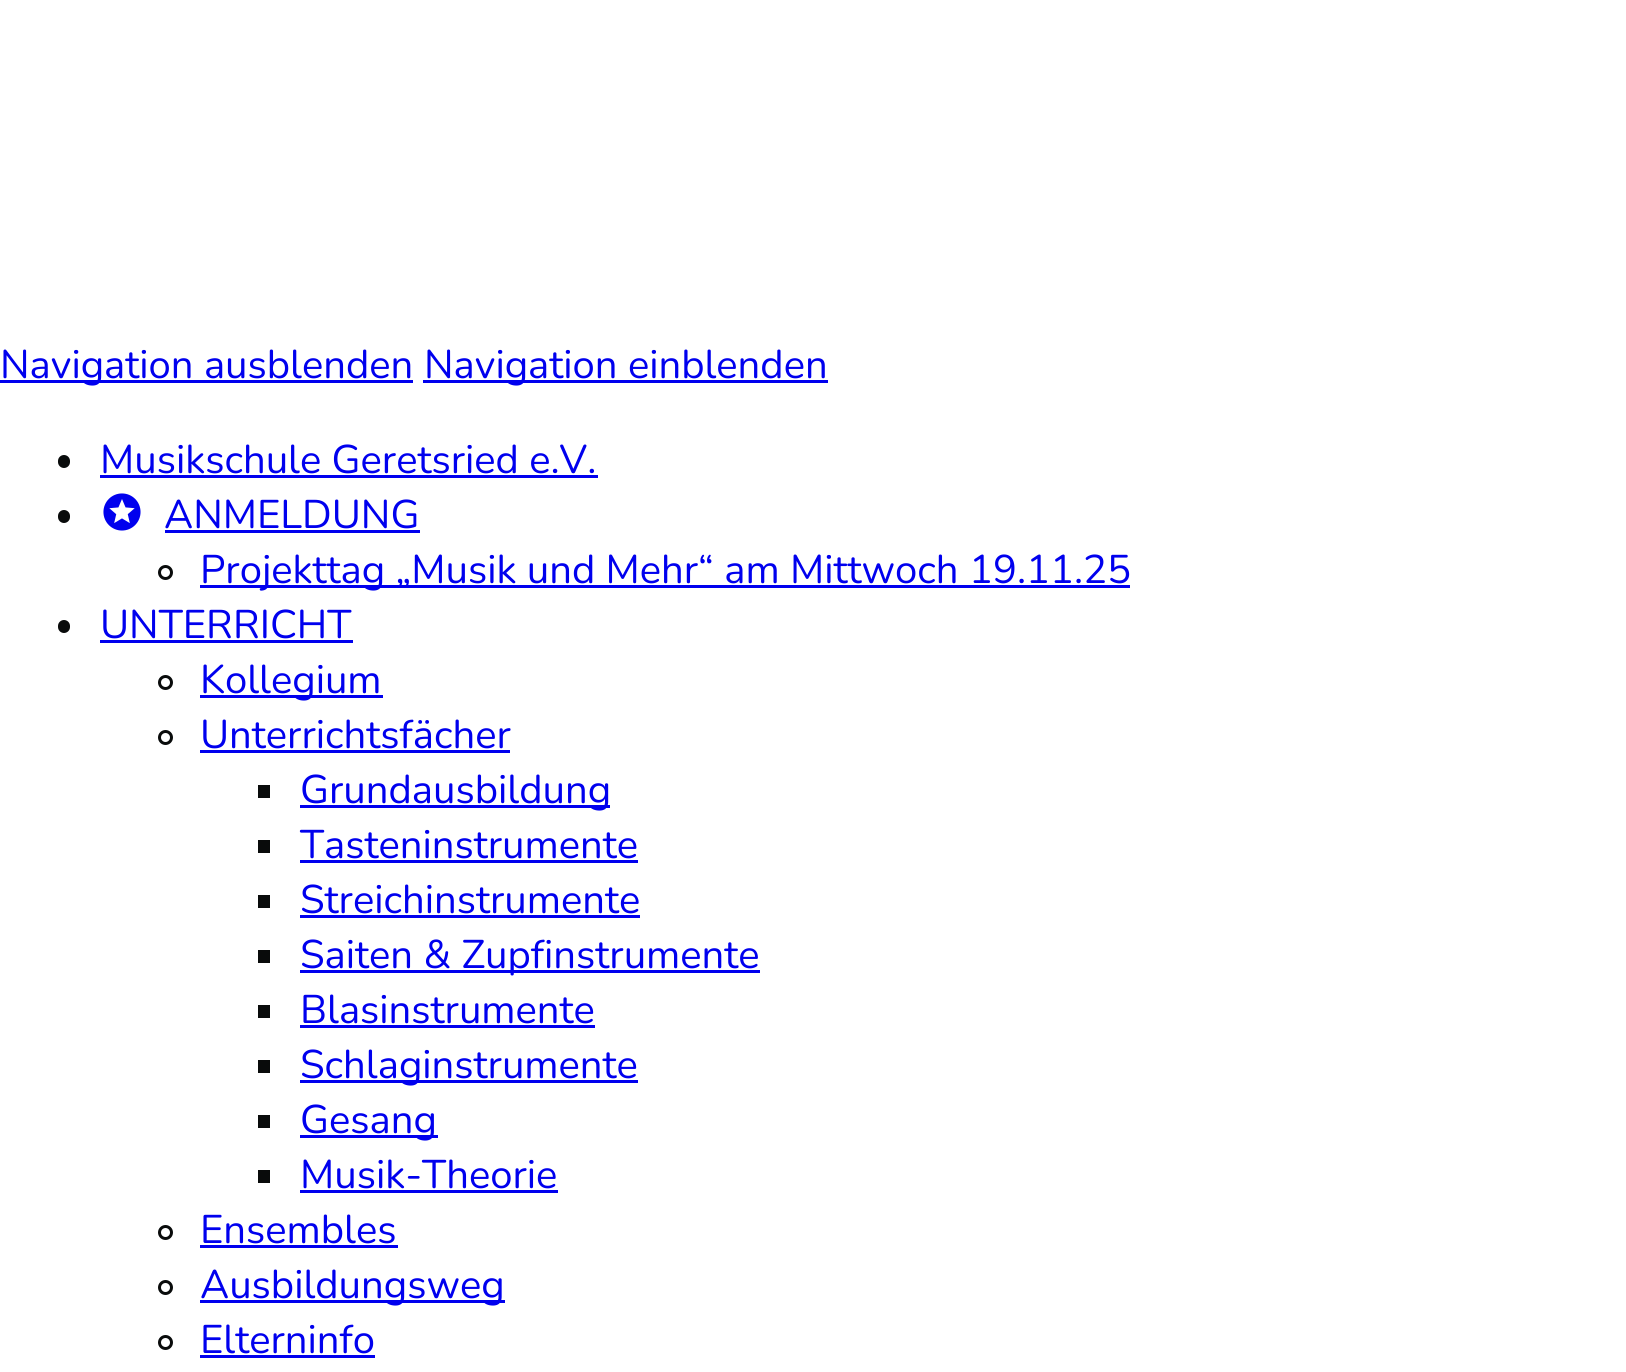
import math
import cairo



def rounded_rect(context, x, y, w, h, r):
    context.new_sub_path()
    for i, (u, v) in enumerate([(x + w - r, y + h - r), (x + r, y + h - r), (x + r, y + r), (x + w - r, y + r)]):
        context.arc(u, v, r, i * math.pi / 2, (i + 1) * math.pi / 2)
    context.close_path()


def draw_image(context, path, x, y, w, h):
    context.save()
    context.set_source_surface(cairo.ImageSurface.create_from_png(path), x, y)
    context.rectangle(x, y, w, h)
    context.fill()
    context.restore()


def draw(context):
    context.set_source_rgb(1, 1, 1)
    context.paint()
    context.set_source_rgb(0, 0, 238 / 255)
    context.rectangle(0, 380, 413, 3)
    context.fill()
    context.rectangle(423, 380, 405, 3)
    context.fill()
    context.set_source_rgb(9 / 255, 11 / 255, 11 / 255)
    rounded_rect(context, 58, 455, 12, 13, 6)
    context.fill()
    context.set_source_rgb(0, 0, 238 / 255)
    context.rectangle(100, 475, 498, 3)
    context.fill()
    context.set_source_rgb(9 / 255, 11 / 255, 11 / 255)
    rounded_rect(context, 58, 510, 12, 13, 6)
    context.fill()
    draw_image(context, "images/1.png", 103, 493, 38, 38)
    context.set_source_rgb(0, 0, 238 / 255)
    context.rectangle(165, 530, 255, 3)
    context.fill()
    context.arc(165.5, 572.5, 6, 0, 2 * math.pi)
    context.set_source_rgb(9 / 255, 11 / 255, 11 / 255)
    context.set_line_width(3)
    context.stroke()
    context.set_source_rgb(0, 0, 238 / 255)
    context.rectangle(200, 585, 930, 3)
    context.fill()
    context.set_source_rgb(9 / 255, 11 / 255, 11 / 255)
    rounded_rect(context, 58, 620, 12, 13, 6)
    context.fill()
    context.set_source_rgb(0, 0, 238 / 255)
    context.rectangle(100, 640, 253, 3)
    context.fill()
    context.arc(165.5, 682.5, 6, 0, 2 * math.pi)
    context.set_source_rgb(9 / 255, 11 / 255, 11 / 255)
    context.stroke()
    context.set_source_rgb(0, 0, 238 / 255)
    context.rectangle(200, 695, 183, 3)
    context.fill()
    context.arc(165.5, 737.5, 6, 0, 2 * math.pi)
    context.set_source_rgb(9 / 255, 11 / 255, 11 / 255)
    context.stroke()
    context.set_source_rgb(0, 0, 238 / 255)
    context.rectangle(200, 750, 310, 3)
    context.fill()
    context.set_source_rgb(9 / 255, 11 / 255, 11 / 255)
    context.rectangle(258, 785, 12, 13)
    context.fill()
    context.set_source_rgb(0, 0, 238 / 255)
    context.rectangle(300, 805, 310, 3)
    context.fill()
    context.set_source_rgb(9 / 255, 11 / 255, 11 / 255)
    context.rectangle(258, 840, 12, 13)
    context.fill()
    context.set_source_rgb(0, 0, 238 / 255)
    context.rectangle(300, 860, 338, 3)
    context.fill()
    context.set_source_rgb(9 / 255, 11 / 255, 11 / 255)
    context.rectangle(258, 895, 12, 13)
    context.fill()
    context.set_source_rgb(0, 0, 238 / 255)
    context.rectangle(300, 915, 340, 3)
    context.fill()
    context.set_source_rgb(9 / 255, 11 / 255, 11 / 255)
    context.rectangle(258, 950, 12, 13)
    context.fill()
    context.set_source_rgb(0, 0, 238 / 255)
    context.rectangle(300, 970, 460, 3)
    context.fill()
    context.set_source_rgb(9 / 255, 11 / 255, 11 / 255)
    context.rectangle(258, 1005, 12, 13)
    context.fill()
    context.set_source_rgb(0, 0, 238 / 255)
    context.rectangle(300, 1025, 295, 3)
    context.fill()
    context.set_source_rgb(9 / 255, 11 / 255, 11 / 255)
    context.rectangle(258, 1060, 12, 13)
    context.fill()
    context.set_source_rgb(0, 0, 238 / 255)
    context.rectangle(300, 1080, 338, 3)
    context.fill()
    context.set_source_rgb(9 / 255, 11 / 255, 11 / 255)
    context.rectangle(258, 1115, 12, 13)
    context.fill()
    context.set_source_rgb(0, 0, 238 / 255)
    context.rectangle(300, 1135, 138, 3)
    context.fill()
    context.set_source_rgb(9 / 255, 11 / 255, 11 / 255)
    context.rectangle(258, 1170, 12, 13)
    context.fill()
    context.set_source_rgb(0, 0, 238 / 255)
    context.rectangle(300, 1190, 258, 3)
    context.fill()
    context.arc(165.5, 1232.5, 6, 0, 2 * math.pi)
    context.set_source_rgb(9 / 255, 11 / 255, 11 / 255)
    context.stroke()
    context.set_source_rgb(0, 0, 238 / 255)
    context.rectangle(200, 1245, 198, 3)
    context.fill()
    context.arc(165.5, 1287.5, 6, 0, 2 * math.pi)
    context.set_source_rgb(9 / 255, 11 / 255, 11 / 255)
    context.stroke()
    context.set_source_rgb(0, 0, 238 / 255)
    context.rectangle(200, 1300, 305, 3)
    context.fill()
    context.arc(165.5, 1342.5, 6, 0, 2 * math.pi)
    context.set_source_rgb(9 / 255, 11 / 255, 11 / 255)
    context.stroke()
    context.set_source_rgb(0, 0, 238 / 255)
    context.rectangle(200, 1355, 175, 3)
    context.fill()
    context.select_font_face("Nunito")
    context.set_font_size(40)
    context.move_to(0, 378)
    context.show_text("Navigation ausblenden")
    context.move_to(424, 378)
    context.show_text("Navigation einblenden")
    context.move_to(100, 473)
    context.show_text("Musikschule Geretsried e.V.")
    context.move_to(164, 528)
    context.show_text("ANMELDUNG")
    context.move_to(200, 583)
    context.show_text("Projekttag „Musik und Mehr“ am Mittwoch 19.11.25")
    context.move_to(100, 638)
    context.show_text("UNTERRICHT")
    context.move_to(200, 693)
    context.show_text("Kollegium")
    context.move_to(200, 748)
    context.show_text("Unterrichtsfächer")
    context.move_to(300, 803)
    context.show_text("Grundausbildung")
    context.move_to(300, 858)
    context.show_text("Tasteninstrumente")
    context.move_to(300, 913)
    context.show_text("Streichinstrumente")
    context.move_to(300, 968)
    context.show_text("Saiten & Zupfinstrumente")
    context.move_to(300, 1023)
    context.show_text("Blasinstrumente")
    context.move_to(300, 1078)
    context.show_text("Schlaginstrumente")
    context.move_to(300, 1133)
    context.show_text("Gesang")
    context.move_to(300, 1188)
    context.show_text("Musik-Theorie")
    context.move_to(200, 1243)
    context.show_text("Ensembles")
    context.move_to(200, 1298)
    context.show_text("Ausbildungsweg")
    context.move_to(200, 1353)
    context.show_text("Elterninfo")


surface = cairo.ImageSurface(cairo.Format.RGB24, 1626, 1372)
context = cairo.Context(surface)
options = cairo.FontOptions()
options.set_hint_metrics(cairo.HintMetrics.OFF)
options.set_hint_style(cairo.HintStyle.NONE)
context.set_font_options(options)
context.set_miter_limit(4)
draw(context)
surface.write_to_png("out.png")
